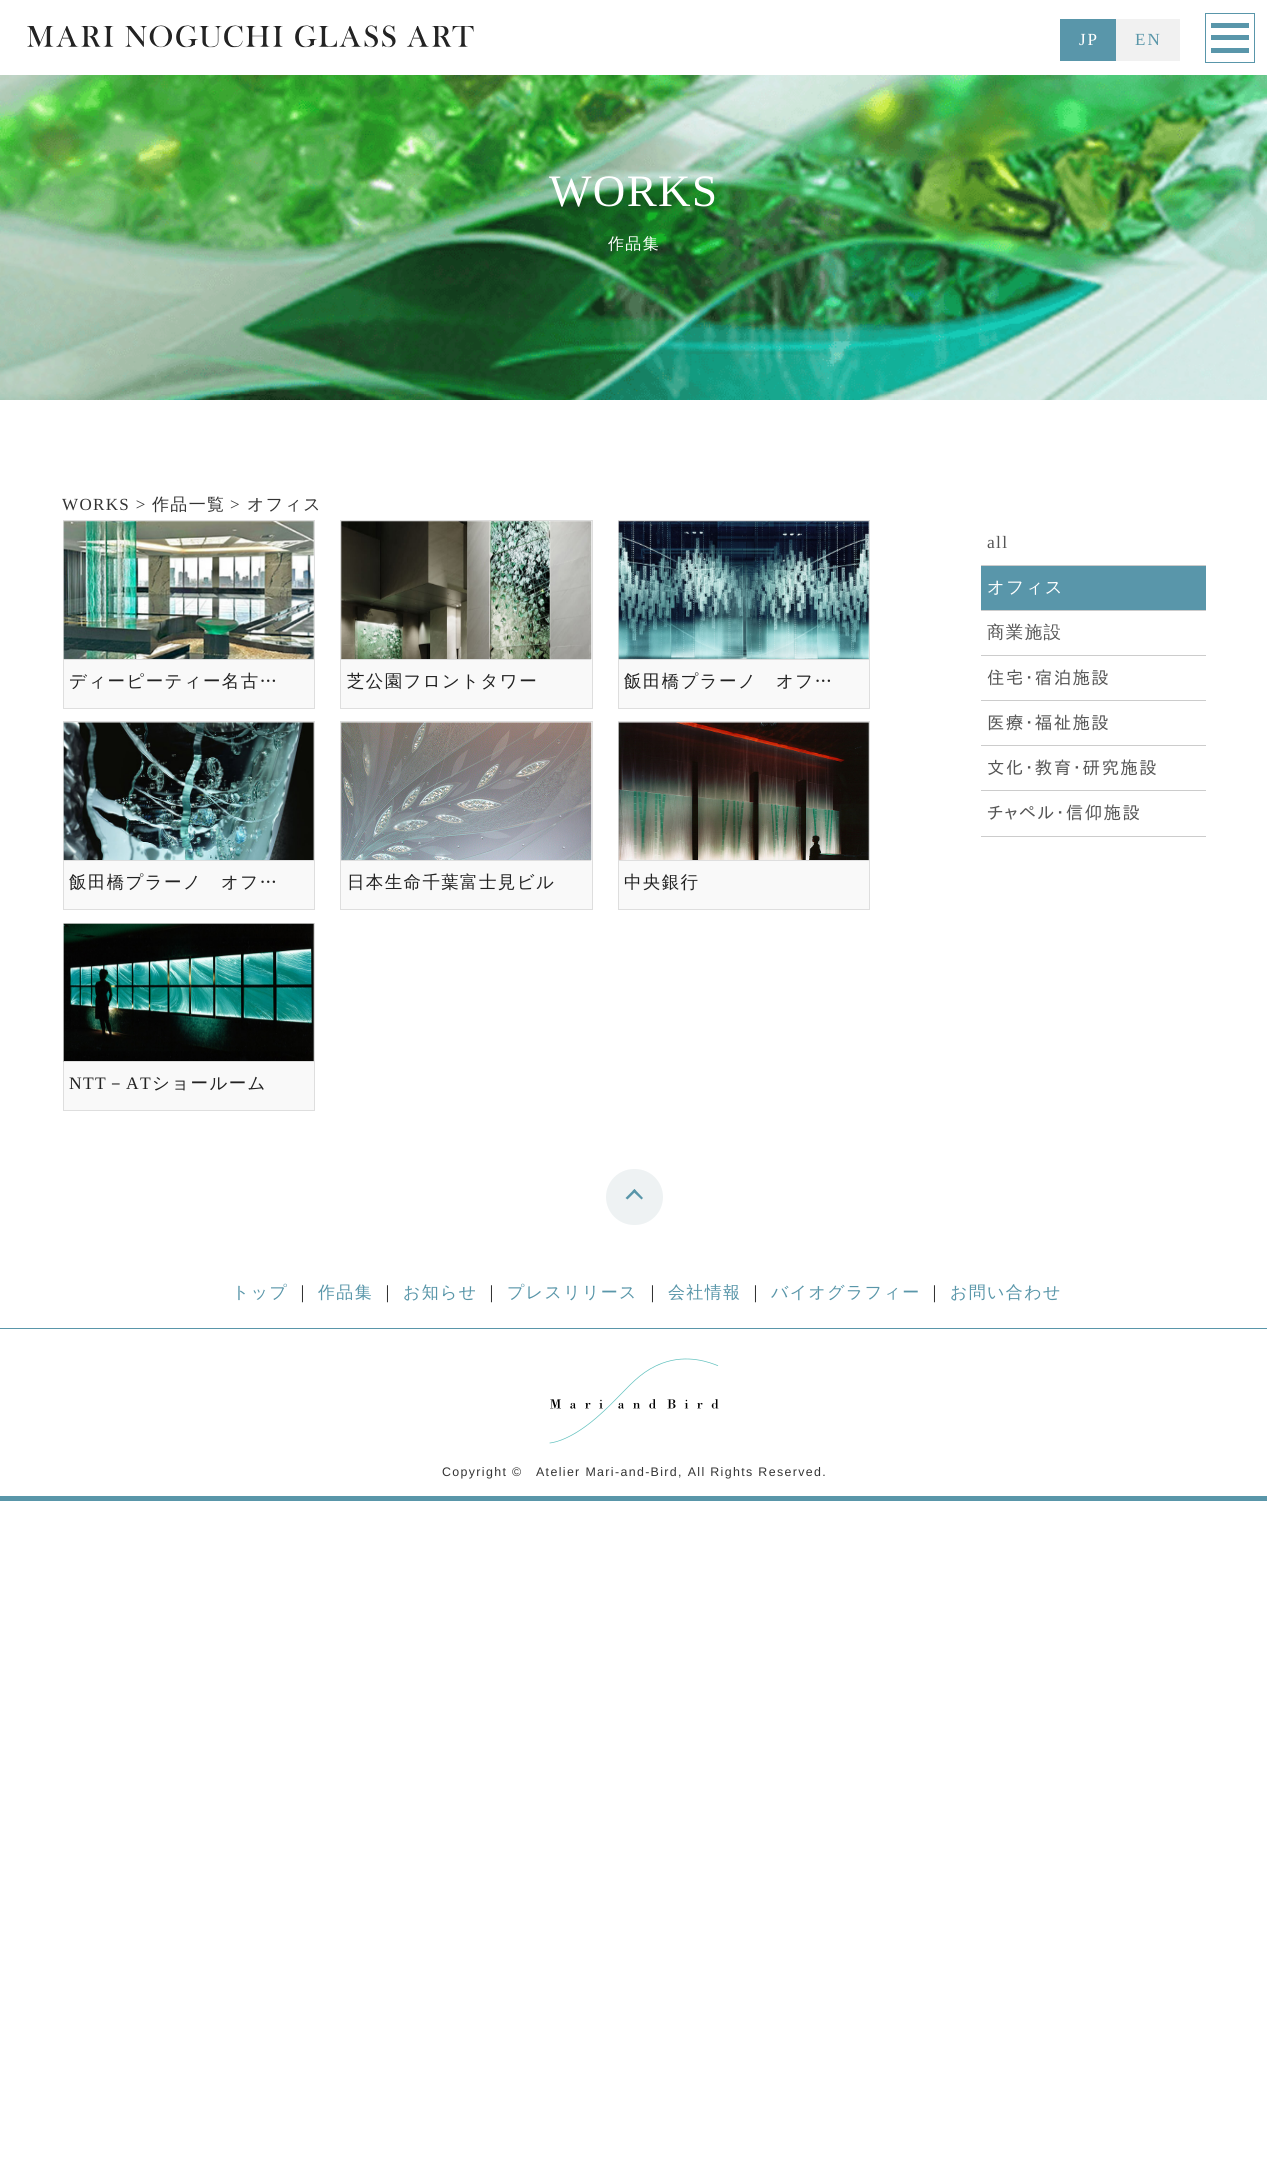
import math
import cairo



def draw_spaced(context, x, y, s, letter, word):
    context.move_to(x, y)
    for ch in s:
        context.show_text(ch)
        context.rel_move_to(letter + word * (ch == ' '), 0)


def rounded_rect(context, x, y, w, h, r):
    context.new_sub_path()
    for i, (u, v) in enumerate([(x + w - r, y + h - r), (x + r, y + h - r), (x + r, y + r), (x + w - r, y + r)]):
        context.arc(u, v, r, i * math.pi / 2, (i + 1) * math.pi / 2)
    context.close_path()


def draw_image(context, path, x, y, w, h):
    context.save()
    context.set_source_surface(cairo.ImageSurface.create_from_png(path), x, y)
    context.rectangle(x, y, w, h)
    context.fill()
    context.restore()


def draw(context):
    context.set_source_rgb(1, 1, 1)
    context.paint()
    draw_image(context, "images/1.png", 27, 25, 447, 23)
    context.set_source_rgb(89 / 255, 150 / 255, 170 / 255)
    context.rectangle(1060, 19, 56, 42)
    context.fill()
    context.set_source_rgb(241 / 255, 241 / 255, 241 / 255)
    context.rectangle(1116, 19, 64, 42)
    context.fill()
    context.rectangle(1205.5, 13.5, 49, 49)
    context.set_source_rgb(89 / 255, 150 / 255, 170 / 255)
    context.set_line_width(1)
    context.stroke()
    context.rectangle(1211, 23, 38, 5)
    context.fill()
    context.rectangle(1211, 35, 38, 5)
    context.fill()
    context.rectangle(1211, 48, 38, 5)
    context.fill()
    draw_image(context, "images/2.png", 0, 75, 1267, 325)
    context.set_source_rgb(249 / 255, 249 / 255, 249 / 255)
    context.rectangle(63.5, 520.5, 251, 188)
    context.fill_preserve()
    context.set_source_rgb(222 / 255, 222 / 255, 222 / 255)
    context.stroke()
    draw_image(context, "images/3.png", 63, 521, 251, 138)
    context.rectangle(64, 659, 250, 1)
    context.fill()
    context.set_source_rgb(249 / 255, 249 / 255, 249 / 255)
    context.rectangle(340.5, 520.5, 252, 188)
    context.fill_preserve()
    context.set_source_rgb(222 / 255, 222 / 255, 222 / 255)
    context.stroke()
    draw_image(context, "images/4.png", 341, 521, 251, 138)
    context.rectangle(341, 659, 250, 1)
    context.fill()
    context.set_source_rgb(249 / 255, 249 / 255, 249 / 255)
    context.rectangle(618.5, 520.5, 251, 188)
    context.fill_preserve()
    context.set_source_rgb(222 / 255, 222 / 255, 222 / 255)
    context.stroke()
    draw_image(context, "images/5.png", 618, 521, 251, 138)
    context.rectangle(619, 659, 250, 1)
    context.fill()
    context.set_source_rgb(249 / 255, 249 / 255, 249 / 255)
    context.rectangle(63.5, 721.5, 251, 188)
    context.fill_preserve()
    context.set_source_rgb(222 / 255, 222 / 255, 222 / 255)
    context.stroke()
    draw_image(context, "images/6.png", 63, 722, 251, 138)
    context.rectangle(64, 860, 250, 1)
    context.fill()
    context.set_source_rgb(249 / 255, 249 / 255, 249 / 255)
    context.rectangle(340.5, 721.5, 252, 188)
    context.fill_preserve()
    context.set_source_rgb(222 / 255, 222 / 255, 222 / 255)
    context.stroke()
    draw_image(context, "images/7.png", 341, 722, 251, 138)
    context.rectangle(341, 860, 250, 1)
    context.fill()
    context.set_source_rgb(249 / 255, 249 / 255, 249 / 255)
    context.rectangle(618.5, 721.5, 251, 188)
    context.fill_preserve()
    context.set_source_rgb(222 / 255, 222 / 255, 222 / 255)
    context.stroke()
    draw_image(context, "images/8.png", 618, 722, 251, 138)
    context.rectangle(619, 860, 250, 1)
    context.fill()
    context.set_source_rgb(249 / 255, 249 / 255, 249 / 255)
    context.rectangle(63.5, 923.5, 251, 187)
    context.fill_preserve()
    context.set_source_rgb(222 / 255, 222 / 255, 222 / 255)
    context.stroke()
    draw_image(context, "images/9.png", 63, 923, 251, 139)
    context.rectangle(64, 1061, 250, 1)
    context.fill()
    context.set_source_rgb(204 / 255, 204 / 255, 204 / 255)
    context.rectangle(981, 565, 225, 1)
    context.fill()
    context.rectangle(981, 610, 225, 1)
    context.fill()
    context.set_source_rgb(89 / 255, 150 / 255, 170 / 255)
    context.rectangle(981, 566, 225, 44)
    context.fill()
    context.set_source_rgb(204 / 255, 204 / 255, 204 / 255)
    context.rectangle(981, 655, 225, 1)
    context.fill()
    context.rectangle(981, 700, 225, 1)
    context.fill()
    context.rectangle(981, 745, 225, 1)
    context.fill()
    context.rectangle(981, 790, 225, 1)
    context.fill()
    context.rectangle(981, 836, 225, 1)
    context.fill()
    context.set_source_rgb(238 / 255, 242 / 255, 243 / 255)
    rounded_rect(context, 606, 1169, 57, 56, 28)
    context.fill()
    context.set_source_rgb(89 / 255, 150 / 255, 169 / 255)
    context.new_path()
    context.move_to(625.5, 1198)
    context.line_to(634.5, 1189)
    context.line_to(636, 1191)
    context.line_to(627.5, 1199.5)
    context.close_path()
    context.fill()
    context.new_path()
    context.move_to(632.5, 1191)
    context.line_to(634.5, 1189)
    context.line_to(643, 1198)
    context.line_to(641.5, 1199.5)
    context.close_path()
    context.fill()
    context.set_source_rgb(89 / 255, 150 / 255, 170 / 255)
    context.rectangle(0, 1328, 1267, 1)
    context.fill()
    context.set_source_rgb(89 / 255, 150 / 255, 169 / 255)
    context.rectangle(0, 1496, 1267, 5)
    context.fill()
    draw_image(context, "images/10.png", 549, 1358, 170, 86)
    context.select_font_face("Liberation Serif")
    context.set_font_size(17)
    context.set_source_rgb(1, 1, 1)
    draw_spaced(context, 1079, 45, "JP", 2, 0)
    context.set_source_rgb(89 / 255, 150 / 255, 169 / 255)
    draw_spaced(context, 1135, 45, "EN", 2, 0)
    context.set_font_size(45)
    context.set_source_rgb(1, 1, 1)
    draw_spaced(context, 549, 206, "WORKS", 1.35, 0)
    context.select_font_face("WenQuanYi Zen Hei Medium")
    context.set_font_size(16)
    draw_spaced(context, 608, 249, "作品集", 1.35, 0)
    context.select_font_face("Liberation Serif")
    context.set_font_size(17)
    context.set_source_rgb(51 / 255, 51 / 255, 51 / 255)
    draw_spaced(context, 62, 510, "WORKS >", 1.35, 0)
    context.select_font_face("WenQuanYi Zen Hei Medium")
    draw_spaced(context, 152, 510, "作品一覧", 1.35, 0)
    context.select_font_face("Liberation Serif")
    draw_spaced(context, 230, 510, ">", 1.35, 0)
    context.select_font_face("WenQuanYi Zen Hei Medium")
    draw_spaced(context, 247, 510, "オフィス", 1.35, 0)
    context.set_font_size(17.5)
    context.set_source_rgb(34 / 255, 34 / 255, 34 / 255)
    draw_spaced(context, 69, 687, "ディーピーティー名古…", 1.35, 0)
    draw_spaced(context, 347, 687, "芝公園フロントタワー", 1.35, 0)
    draw_spaced(context, 624, 687, "飯田橋プラーノ　オフ…", 1.35, 0)
    draw_spaced(context, 69, 888, "飯田橋プラーノ　オフ…", 1.35, 0)
    draw_spaced(context, 347, 888, "日本生命千葉富士見ビル", 1.35, 0)
    draw_spaced(context, 624, 888, "中央銀行", 1.35, 0)
    context.select_font_face("Liberation Serif")
    draw_spaced(context, 69, 1089, "NTT", 1.35, 0)
    context.select_font_face("WenQuanYi Zen Hei Medium")
    draw_spaced(context, 107, 1089, "－", 1.35, 0)
    context.select_font_face("Liberation Serif")
    draw_spaced(context, 126, 1089, "AT", 1.35, 0)
    context.select_font_face("WenQuanYi Zen Hei Medium")
    draw_spaced(context, 152, 1089, "ショールーム", 1.35, 0)
    context.select_font_face("Liberation Serif")
    context.set_source_rgb(85 / 255, 85 / 255, 85 / 255)
    draw_spaced(context, 987, 548, "all", 1.35, 0)
    context.select_font_face("WenQuanYi Zen Hei Medium")
    context.set_source_rgb(1, 1, 1)
    draw_spaced(context, 987, 593, "オフィス", 1.35, 0)
    context.set_source_rgb(85 / 255, 85 / 255, 85 / 255)
    draw_spaced(context, 987, 638, "商業施設", 1.35, 0)
    context.select_font_face("IPAPGothic")
    draw_spaced(context, 987, 684, "住宅･宿泊施設", 1.35, 0)
    draw_spaced(context, 987, 729, "医療･福祉施設", 1.35, 0)
    draw_spaced(context, 987, 774, "文化･教育･研究施設", 1.35, 0)
    draw_spaced(context, 987, 819, "チャペル･信仰施設", 1.35, 0)
    context.select_font_face("WenQuanYi Zen Hei Medium")
    context.set_font_size(17)
    context.set_source_rgb(89 / 255, 150 / 255, 169 / 255)
    draw_spaced(context, 232, 1298, "トップ", 1.35, 0)
    context.set_source_rgb(51 / 255, 51 / 255, 51 / 255)
    draw_spaced(context, 294, 1298, "｜", 1.35, 0)
    context.set_source_rgb(89 / 255, 150 / 255, 169 / 255)
    draw_spaced(context, 318, 1298, "作品集", 1.35, 0)
    context.set_source_rgb(51 / 255, 51 / 255, 51 / 255)
    draw_spaced(context, 379, 1298, "｜", 1.35, 0)
    context.set_source_rgb(89 / 255, 150 / 255, 169 / 255)
    draw_spaced(context, 403, 1298, "お知らせ", 1.35, 0)
    context.set_source_rgb(51 / 255, 51 / 255, 51 / 255)
    draw_spaced(context, 483, 1298, "｜", 1.35, 0)
    context.set_source_rgb(89 / 255, 150 / 255, 169 / 255)
    draw_spaced(context, 507, 1298, "プレスリリース", 1.35, 0)
    context.set_source_rgb(51 / 255, 51 / 255, 51 / 255)
    draw_spaced(context, 644, 1298, "｜", 1.35, 0)
    context.set_source_rgb(89 / 255, 150 / 255, 169 / 255)
    draw_spaced(context, 668, 1298, "会社情報", 1.35, 0)
    context.set_source_rgb(51 / 255, 51 / 255, 51 / 255)
    draw_spaced(context, 747, 1298, "｜", 1.35, 0)
    context.set_source_rgb(89 / 255, 150 / 255, 169 / 255)
    draw_spaced(context, 771, 1298, "バイオグラフィー", 1.35, 0)
    context.set_source_rgb(51 / 255, 51 / 255, 51 / 255)
    draw_spaced(context, 926, 1298, "｜", 1.35, 0)
    context.set_source_rgb(89 / 255, 150 / 255, 169 / 255)
    draw_spaced(context, 950, 1298, "お問い合わせ", 1.35, 0)
    context.select_font_face("Liberation Sans")
    context.set_font_size(12.4)
    context.set_source_rgb(51 / 255, 51 / 255, 51 / 255)
    draw_spaced(context, 442, 1476, "Copyright ©", 1.35, 0)
    draw_spaced(context, 536, 1476, "Atelier Mari-and-Bird, All Rights Reserved.", 1.35, 0)


surface = cairo.ImageSurface(cairo.Format.RGB24, 1267, 2163)
context = cairo.Context(surface)
options = cairo.FontOptions()
options.set_hint_metrics(cairo.HintMetrics.OFF)
options.set_hint_style(cairo.HintStyle.NONE)
context.set_font_options(options)
context.set_miter_limit(4)
draw(context)
surface.write_to_png("out.png")
